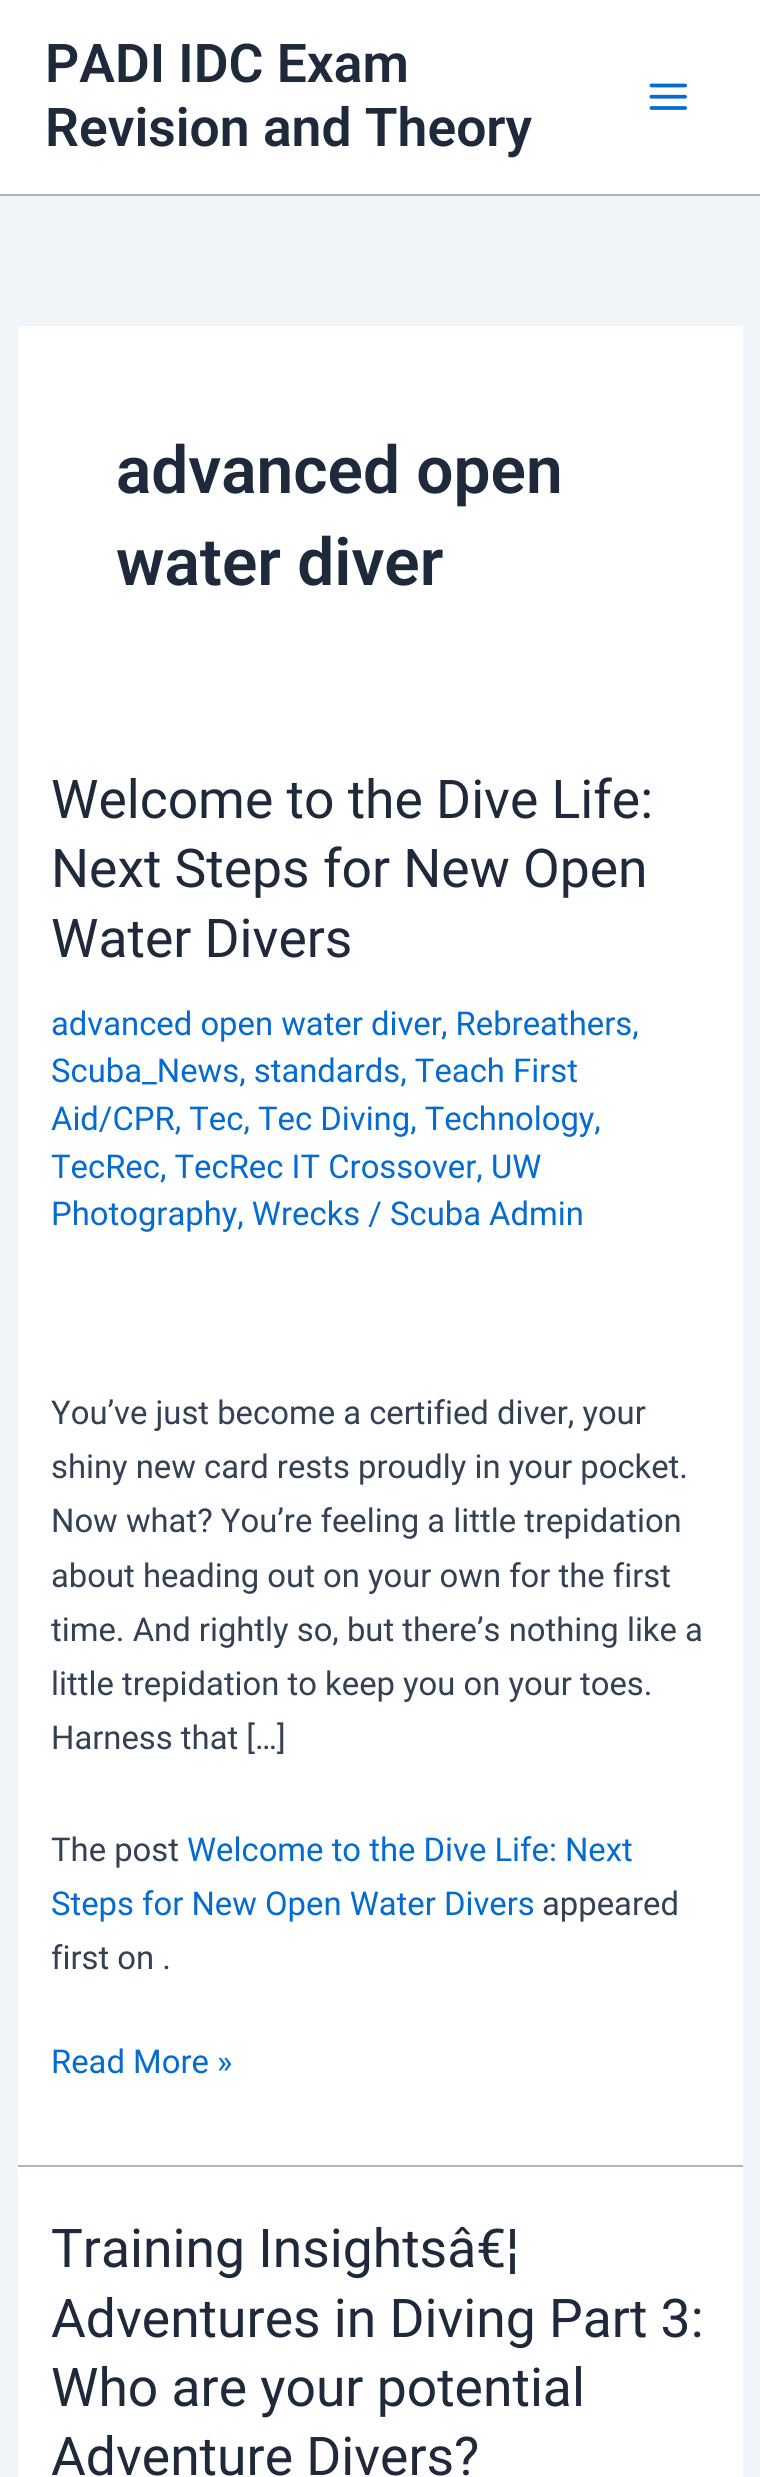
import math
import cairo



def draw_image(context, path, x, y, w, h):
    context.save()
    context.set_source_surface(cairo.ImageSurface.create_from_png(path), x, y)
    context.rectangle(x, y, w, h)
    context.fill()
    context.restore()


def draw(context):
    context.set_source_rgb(240 / 255, 245 / 255, 250 / 255)
    context.paint()
    context.set_source_rgb(1, 1, 1)
    context.rectangle(0, 0, 760, 194)
    context.fill()
    context.set_source_rgb(173 / 255, 182 / 255, 190 / 255)
    context.rectangle(0, 194, 760, 2)
    context.fill()
    draw_image(context, "images/1.png", 649, 83, 38, 27)
    context.set_source_rgb(1, 1, 1)
    context.rectangle(18, 326, 725, 1839)
    context.fill()
    context.set_source_rgb(173 / 255, 182 / 255, 190 / 255)
    context.rectangle(18, 2165, 725, 2)
    context.fill()
    context.set_source_rgb(1, 1, 1)
    context.rectangle(18, 2167, 725, 310)
    context.fill()
    context.select_font_face("Roboto SemiBold")
    context.set_font_size(53.4)
    context.set_source_rgb(30 / 255, 41 / 255, 59 / 255)
    context.move_to(45, 82)
    context.show_text("PADI IDC Exam")
    context.move_to(45, 146)
    context.show_text("Revision and Theory")
    context.set_font_size(65.75)
    context.move_to(116, 493)
    context.show_text("advanced open")
    context.move_to(116, 585)
    context.show_text("water diver")
    context.select_font_face("Roboto")
    context.set_font_size(53.4)
    context.move_to(51, 818)
    context.show_text("Welcome to the Dive Life:")
    context.move_to(51, 887)
    context.show_text("Next Steps for New Open")
    context.move_to(51, 957)
    context.show_text("Water Divers")
    context.set_font_size(32.8)
    context.set_source_rgb(4 / 255, 107 / 255, 210 / 255)
    context.move_to(51, 1035)
    context.show_text("advanced open water diver")
    context.move_to(441, 1035)
    context.show_text(", Rebreathers,")
    context.move_to(51, 1082)
    context.show_text("Scuba_News, standards, Teach First")
    context.move_to(51, 1130)
    context.show_text("Aid/CPR, Tec, Tec Diving, Technology,")
    context.move_to(51, 1178)
    context.show_text("TecRec, TecRec IT Crossover, UW")
    context.move_to(51, 1225)
    context.show_text("Photography, Wrecks / Scuba Admin")
    context.set_source_rgb(51 / 255, 65 / 255, 85 / 255)
    context.move_to(51, 1424)
    context.show_text("You’ve just become a certified diver, your")
    context.move_to(51, 1478)
    context.show_text("shiny new card rests proudly in your pocket.")
    context.move_to(51, 1532)
    context.show_text("Now what? You’re feeling a little trepidation")
    context.move_to(51, 1587)
    context.show_text("about heading out on your own for the first")
    context.move_to(51, 1641)
    context.show_text("time. And rightly so, but there’s nothing like a")
    context.move_to(51, 1695)
    context.show_text("little trepidation to keep you on your toes.")
    context.move_to(51, 1749)
    context.show_text("Harness that […]")
    context.move_to(51, 1861)
    context.show_text("The post")
    context.set_source_rgb(4 / 255, 107 / 255, 210 / 255)
    context.move_to(187, 1861)
    context.show_text("Welcome to the Dive Life: Next")
    context.move_to(51, 1915)
    context.show_text("Steps for New Open Water Divers")
    context.set_source_rgb(51 / 255, 65 / 255, 85 / 255)
    context.move_to(542, 1915)
    context.show_text("appeared")
    context.move_to(51, 1969)
    context.show_text("first on .")
    context.set_source_rgb(4 / 255, 107 / 255, 210 / 255)
    context.move_to(51, 2073)
    context.show_text("Read More »")
    context.set_font_size(53.4)
    context.set_source_rgb(30 / 255, 41 / 255, 59 / 255)
    context.move_to(51, 2267)
    context.show_text("Training Insightsâ€¦")
    context.move_to(51, 2337)
    context.show_text("Adventures in Diving Part 3:")
    context.move_to(51, 2406)
    context.show_text("Who are your potential")
    context.move_to(51, 2475)
    context.show_text("Adventure Divers?")


surface = cairo.ImageSurface(cairo.Format.RGB24, 760, 2477)
context = cairo.Context(surface)
options = cairo.FontOptions()
options.set_hint_metrics(cairo.HintMetrics.OFF)
options.set_hint_style(cairo.HintStyle.NONE)
context.set_font_options(options)
context.set_miter_limit(4)
draw(context)
surface.write_to_png("out.png")
